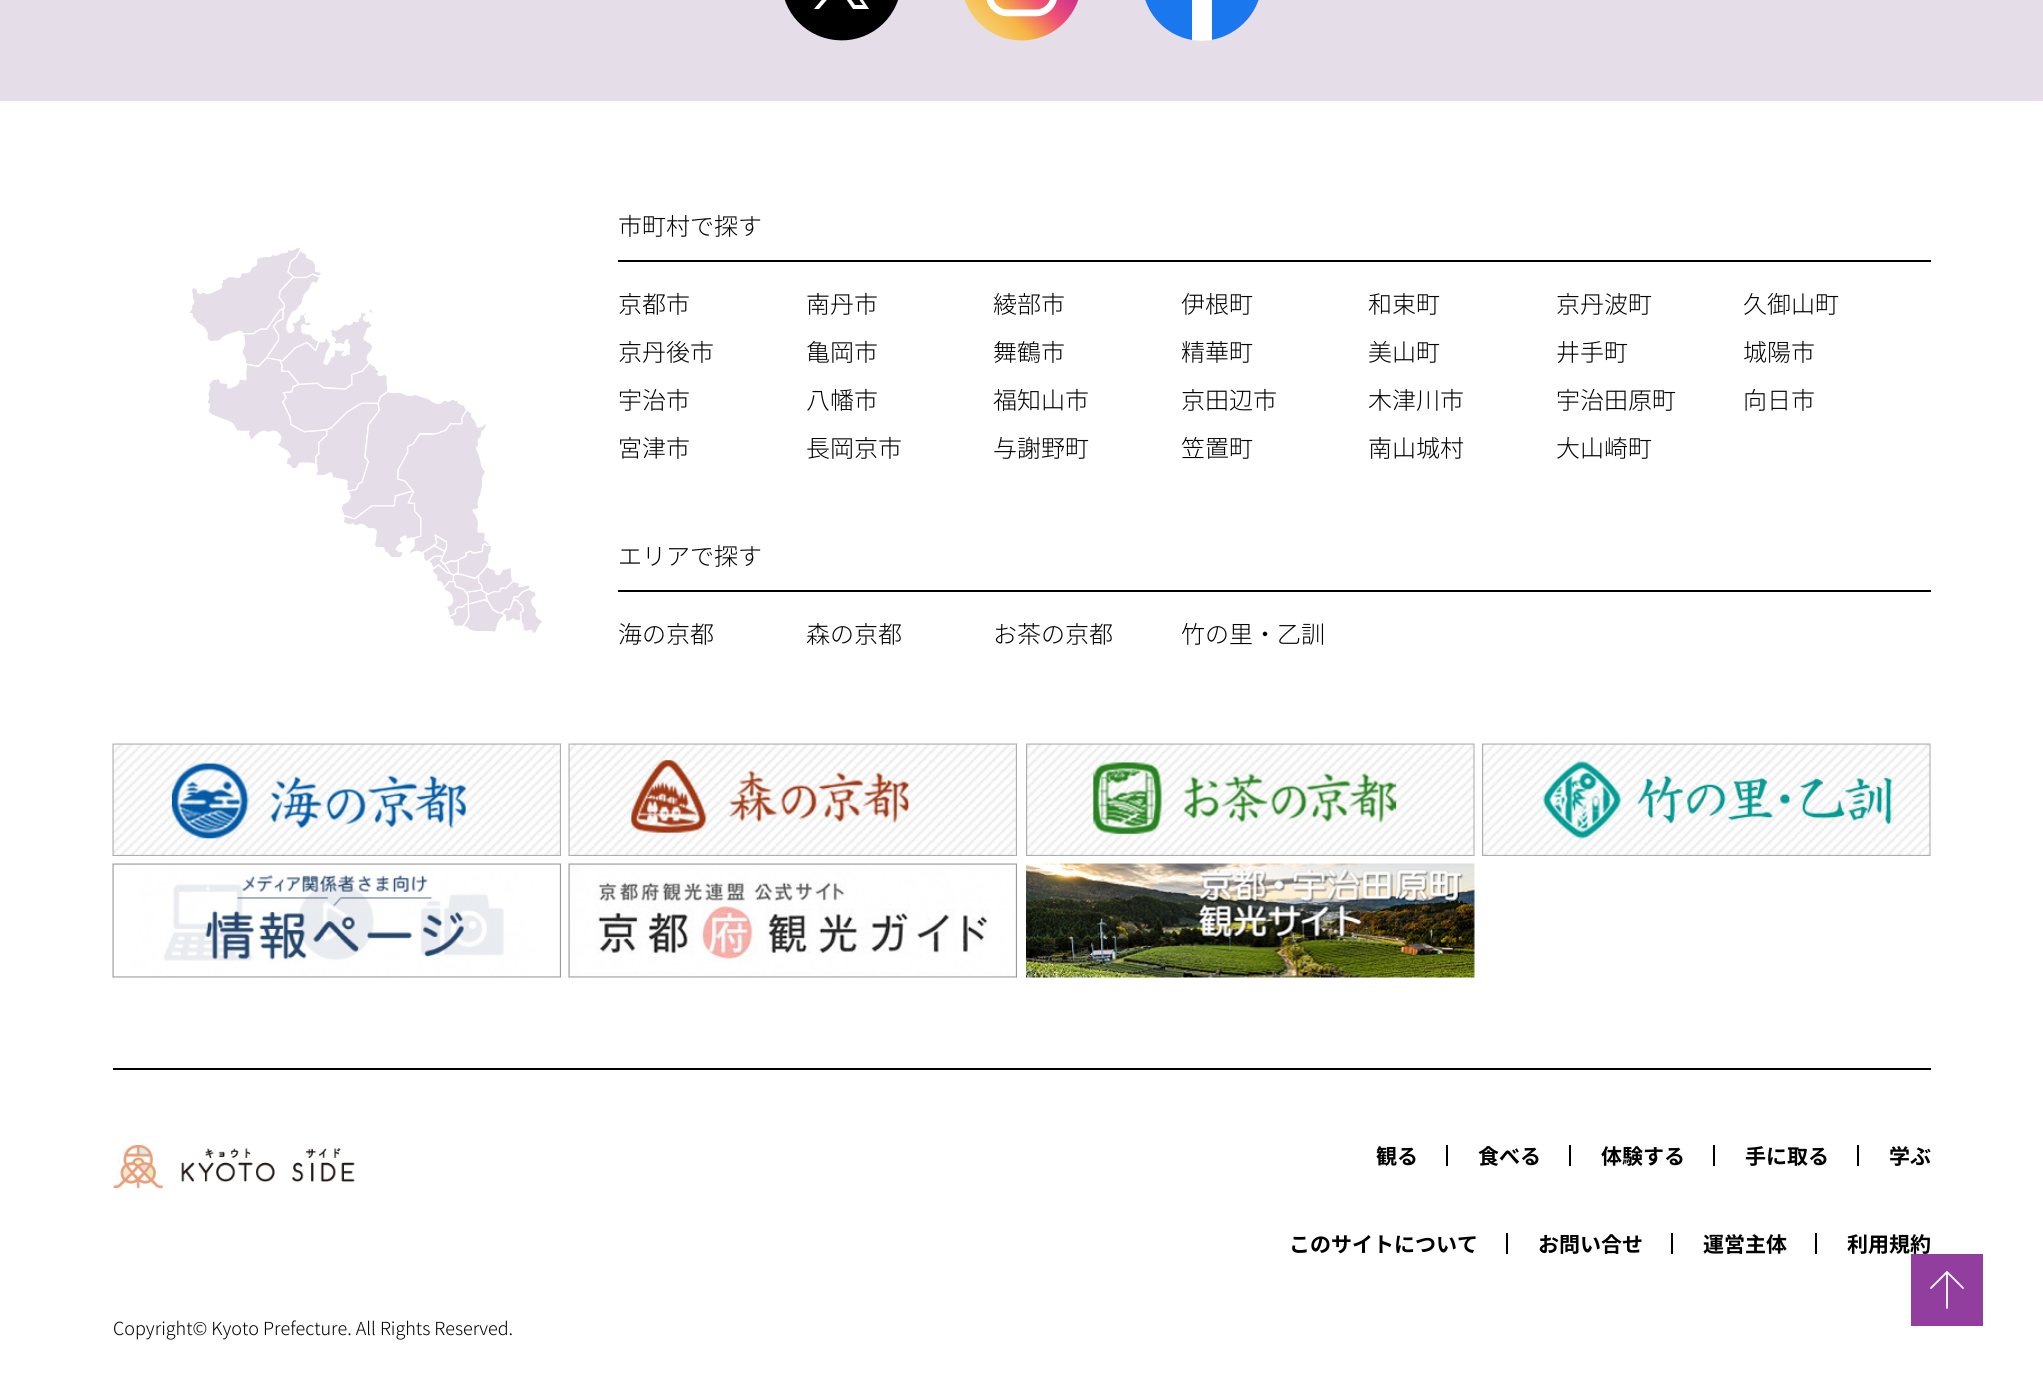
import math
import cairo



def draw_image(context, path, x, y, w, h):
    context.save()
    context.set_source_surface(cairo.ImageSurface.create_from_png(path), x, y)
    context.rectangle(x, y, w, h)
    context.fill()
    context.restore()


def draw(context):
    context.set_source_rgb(229 / 255, 222 / 255, 232 / 255)
    context.paint()
    context.set_source_rgb(0, 0, 0)
    context.new_path()
    context.move_to(783, -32)
    context.curve_to(790, -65, 822, -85, 854, -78)
    context.curve_to(887, -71, 907, -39, 900, -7)
    context.curve_to(893, 26, 861, 46, 829, 39)
    context.curve_to(796, 32, 776, 0, 783, -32)
    context.close_path()
    context.fill()
    context.set_source_rgb(1, 1, 1)
    context.new_path()
    context.move_to(847, -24)
    context.line_to(868, -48)
    context.line_to(863, -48)
    context.line_to(845, -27)
    context.line_to(830, -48)
    context.line_to(814, -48)
    context.line_to(835, -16)
    context.line_to(814, 9)
    context.line_to(819, 9)
    context.line_to(838, -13)
    context.line_to(853, 9)
    context.line_to(869, 9)
    context.close_path()
    context.move_to(840, -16)
    context.line_to(820, -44)
    context.line_to(828, -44)
    context.line_to(863, 5)
    context.line_to(855, 5)
    context.close_path()
    context.fill()
    draw_image(context, "images/1.png", 964, 0, 115, 41)
    context.set_source_rgb(27 / 255, 119 / 255, 237 / 255)
    context.new_path()
    context.move_to(1192, 40)
    context.curve_to(1163, 35, 1142, 10, 1142, -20)
    context.curve_to(1142, -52, 1168, -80, 1202, -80)
    context.curve_to(1234, -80, 1262, -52, 1262, -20)
    context.curve_to(1262, 10, 1240, 35, 1211, 40)
    context.line_to(1208, 37)
    context.line_to(1195, 37)
    context.close_path()
    context.fill()
    context.set_source_rgb(1, 1, 1)
    context.new_path()
    context.move_to(1225, -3)
    context.line_to(1228, -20)
    context.line_to(1212, -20)
    context.curve_to(1212, -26, 1209, -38, 1218, -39)
    context.line_to(1228, -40)
    context.line_to(1228, -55)
    context.curve_to(1214, -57, 1196, -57, 1192, -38)
    context.line_to(1192, -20)
    context.line_to(1177, -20)
    context.line_to(1177, -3)
    context.line_to(1192, -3)
    context.line_to(1192, 40)
    context.curve_to(1198, 41, 1205, 41, 1212, 40)
    context.line_to(1212, -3)
    context.close_path()
    context.fill()
    context.rectangle(0, 101, 2043, 1284)
    context.fill()
    draw_image(context, "images/2.png", 189, 248, 353, 385)
    context.set_source_rgb(0, 0, 0)
    context.rectangle(618, 260, 1313, 2)
    context.fill()
    context.rectangle(618, 590, 1313, 2)
    context.fill()
    draw_image(context, "images/3.png", 112, 743, 449, 113)
    draw_image(context, "images/4.png", 568, 743, 449, 113)
    draw_image(context, "images/5.png", 1026, 743, 449, 113)
    draw_image(context, "images/6.png", 1482, 743, 449, 113)
    draw_image(context, "images/7.png", 112, 863, 449, 115)
    draw_image(context, "images/8.png", 568, 863, 449, 115)
    draw_image(context, "images/9.png", 1026, 863, 449, 115)
    context.rectangle(113, 1068, 1818, 2)
    context.fill()
    draw_image(context, "images/10.png", 113, 1144, 242, 45)
    context.rectangle(1446, 1145, 2, 21)
    context.fill()
    context.rectangle(1569, 1145, 2, 21)
    context.fill()
    context.rectangle(1713, 1145, 2, 21)
    context.fill()
    context.rectangle(1857, 1145, 2, 21)
    context.fill()
    context.rectangle(1506, 1233, 2, 21)
    context.fill()
    context.rectangle(1671, 1233, 2, 21)
    context.fill()
    context.rectangle(1815, 1233, 2, 21)
    context.fill()
    context.set_source_rgb(145 / 255, 62 / 255, 158 / 255)
    context.rectangle(1911, 1254, 72, 72)
    context.fill()
    context.new_path()
    context.move_to(1947, 1272)
    context.line_to(1947, 1308)
    context.move_to(1931, 1288)
    context.line_to(1947, 1272)
    context.line_to(1963, 1288)
    context.set_source_rgb(1, 1, 1)
    context.set_line_width(1.8)
    context.set_line_cap(cairo.LineCap.ROUND)
    context.set_line_join(cairo.LineJoin.ROUND)
    context.stroke()
    context.select_font_face("Noto Sans JP Light")
    context.set_font_size(24)
    context.set_source_rgb(0, 0, 0)
    context.move_to(618, 235)
    context.show_text("市町村で探す")
    context.move_to(618, 313)
    context.show_text("京都市")
    context.move_to(806, 313)
    context.show_text("南丹市")
    context.move_to(993, 313)
    context.show_text("綾部市")
    context.move_to(1181, 313)
    context.show_text("伊根町")
    context.move_to(1368, 313)
    context.show_text("和束町")
    context.move_to(1556, 313)
    context.show_text("京丹波町")
    context.move_to(1743, 313)
    context.show_text("久御山町")
    context.move_to(618, 361)
    context.show_text("京丹後市")
    context.move_to(806, 361)
    context.show_text("亀岡市")
    context.move_to(993, 361)
    context.show_text("舞鶴市")
    context.move_to(1181, 361)
    context.show_text("精華町")
    context.move_to(1368, 361)
    context.show_text("美山町")
    context.move_to(1556, 361)
    context.show_text("井手町")
    context.move_to(1743, 361)
    context.show_text("城陽市")
    context.move_to(618, 409)
    context.show_text("宇治市")
    context.move_to(806, 409)
    context.show_text("八幡市")
    context.move_to(993, 409)
    context.show_text("福知山市")
    context.move_to(1181, 409)
    context.show_text("京田辺市")
    context.move_to(1368, 409)
    context.show_text("木津川市")
    context.move_to(1556, 409)
    context.show_text("宇治田原町")
    context.move_to(1743, 409)
    context.show_text("向日市")
    context.move_to(618, 457)
    context.show_text("宮津市")
    context.move_to(806, 457)
    context.show_text("長岡京市")
    context.move_to(993, 457)
    context.show_text("与謝野町")
    context.move_to(1181, 457)
    context.show_text("笠置町")
    context.move_to(1368, 457)
    context.show_text("南山城村")
    context.move_to(1556, 457)
    context.show_text("大山崎町")
    context.move_to(618, 565)
    context.show_text("エリアで探す")
    context.move_to(618, 643)
    context.show_text("海の京都")
    context.move_to(806, 643)
    context.show_text("森の京都")
    context.move_to(993, 643)
    context.show_text("お茶の京都")
    context.move_to(1181, 643)
    context.show_text("竹の里・乙訓")
    context.select_font_face("Noto Sans JP", cairo.FontSlant.NORMAL, cairo.FontWeight.BOLD)
    context.set_font_size(21)
    context.move_to(1376, 1164)
    context.show_text("観る")
    context.move_to(1478, 1164)
    context.show_text("食べる")
    context.move_to(1601, 1164)
    context.show_text("体験する")
    context.move_to(1745, 1164)
    context.show_text("手に取る")
    context.move_to(1889, 1164)
    context.show_text("学ぶ")
    context.move_to(1289, 1252)
    context.show_text("このサイトについて")
    context.move_to(1538, 1252)
    context.show_text("お問い合せ")
    context.move_to(1703, 1252)
    context.show_text("運営主体")
    context.move_to(1847, 1252)
    context.show_text("利用規約")
    context.select_font_face("Noto Sans JP Light")
    context.set_font_size(18)
    context.move_to(113, 1335)
    context.show_text("Copyright© Kyoto Prefecture. All Rights Reserved.")


surface = cairo.ImageSurface(cairo.Format.RGB24, 2043, 1385)
context = cairo.Context(surface)
options = cairo.FontOptions()
options.set_hint_metrics(cairo.HintMetrics.OFF)
options.set_hint_style(cairo.HintStyle.NONE)
context.set_font_options(options)
context.set_miter_limit(4)
draw(context)
surface.write_to_png("out.png")
